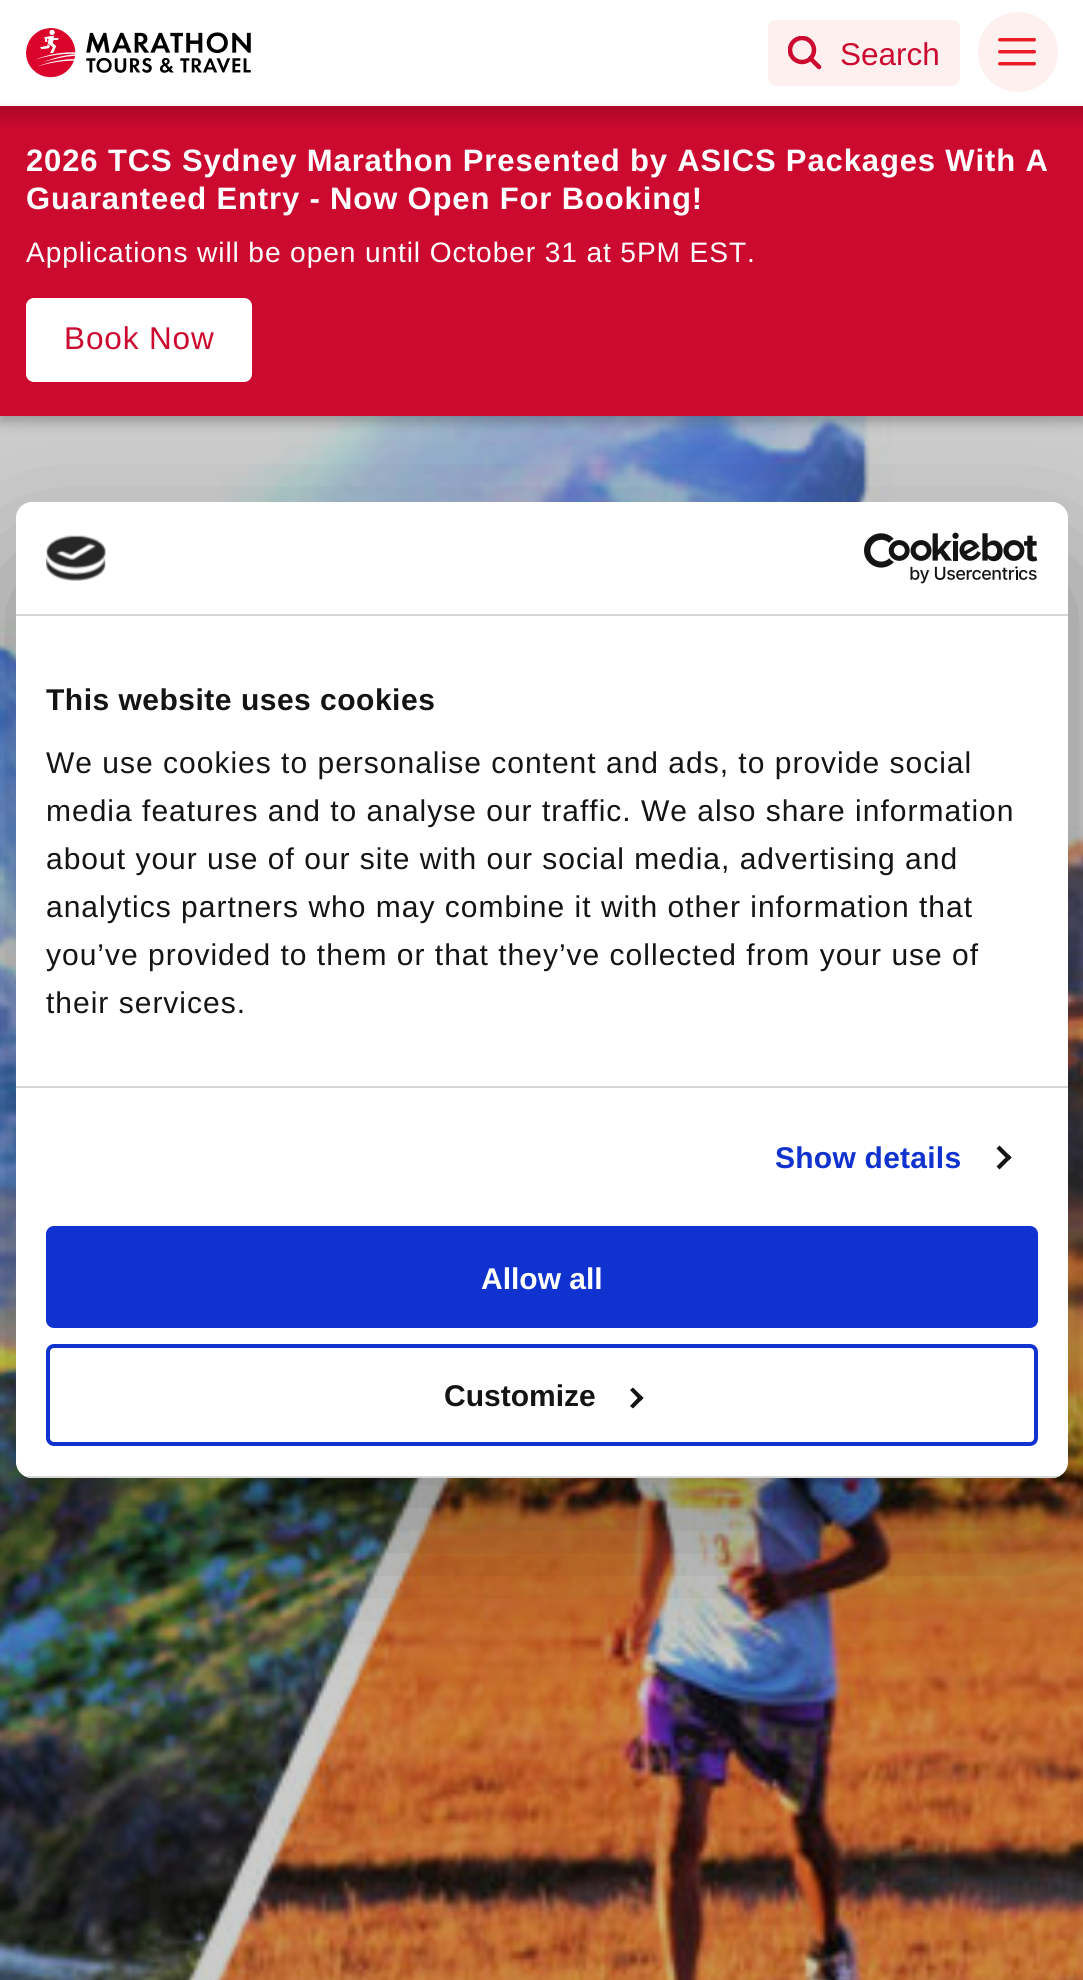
import math
import cairo



def draw_spaced(context, x, y, s, letter, word):
    context.move_to(x, y)
    for ch in s:
        context.show_text(ch)
        context.rel_move_to(letter + word * (ch == ' '), 0)


def rounded_rect(context, x, y, w, h, r):
    context.new_sub_path()
    for i, (u, v) in enumerate([(x + w - r, y + h - r), (x + r, y + h - r), (x + r, y + r), (x + w - r, y + r)]):
        context.arc(u, v, r, i * math.pi / 2, (i + 1) * math.pi / 2)
    context.close_path()


def draw_shadow(context, x, y, w, h, r, blur, alpha):
    context.push_group_with_content(cairo.Content.ALPHA)
    context.set_operator(cairo.Operator.SOURCE)
    for i in range(15, -16, -2):
        e = blur * i / 6
        if min(w, h) + 2 * e > 0:
            context.set_source_rgba(0, 0, 0, alpha * math.erfc((i - 1) / 8.5) / 2)
            rounded_rect(context, x - e, y - e, w + 2 * e, h + 2 * e, max(0, min(r + e + blur * .6, min(w, h) / 2 + e)))
            context.fill()
    context.mask(context.pop_group())


def draw_image(context, path, x, y, w, h):
    context.save()
    context.set_source_surface(cairo.ImageSurface.create_from_png(path), x, y)
    context.rectangle(x, y, w, h)
    context.fill()
    context.restore()


def draw(context):
    context.set_source_rgb(1, 1, 1)
    context.paint()
    draw_image(context, "images/1.png", 26, 28, 225, 50)
    context.set_source_rgb(253 / 255, 240 / 255, 238 / 255)
    rounded_rect(context, 769, 21, 190, 64, 7)
    context.fill_preserve()
    context.stroke()
    context.save()
    context.rectangle(788, 36, 34, 34)
    context.clip()
    context.arc(802, 50, 12, 0, 2 * math.pi)
    context.set_source_rgb(204 / 255, 9 / 255, 47 / 255)
    context.set_line_width(4.5)
    context.stroke()
    context.restore()
    context.new_path()
    context.move_to(819, 67)
    context.line_to(810.5, 58.5)
    context.set_source_rgb(204 / 255, 9 / 255, 47 / 255)
    context.set_line_width(4.5)
    context.set_line_cap(cairo.LineCap.ROUND)
    context.set_line_join(cairo.LineJoin.ROUND)
    context.stroke()
    draw_image(context, "images/2.png", 978, 12, 80, 80)
    draw_image(context, "images/3.png", 0, 416, 1083, 1564)
    context.set_source_rgb(0, 0, 0)
    draw_shadow(context, 0, 112, 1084, 310, 0, 6, 0.25)
    context.set_source_rgb(204 / 255, 9 / 255, 47 / 255)
    context.rectangle(0, 130, 1083, 286)
    context.fill()
    gradient = cairo.LinearGradient(542, 106, 542, 130)
    gradient.add_color_stop_rgba(0, 173 / 255, 8 / 255, 40 / 255, 1)
    gradient.add_color_stop_rgba(1, 204 / 255, 9 / 255, 47 / 255, 1)
    context.set_source(gradient)
    context.rectangle(0, 106, 1083, 24)
    context.fill()
    context.set_source_rgb(1, 1, 1)
    rounded_rect(context, 27, 299, 224, 82, 7)
    context.fill_preserve()
    context.set_line_width(2)
    context.set_line_cap(cairo.LineCap.BUTT)
    context.set_line_join(cairo.LineJoin.MITER)
    context.stroke()
    context.set_source_rgb(0, 0, 0)
    draw_shadow(context, 16, 566, 1052, 976, 16, 68, 0.3)
    context.set_source_rgb(1, 1, 1)
    rounded_rect(context, 16, 502, 1052, 976, 16)
    context.fill()
    context.set_source_rgb(214 / 255, 214 / 255, 214 / 255)
    context.rectangle(16, 614, 1052, 2)
    context.fill()
    draw_image(context, "images/4.png", 46, 535, 60, 46)
    draw_image(context, "images/5.png", 864, 532, 174, 52)
    context.rectangle(16, 1086, 1052, 2)
    context.fill()
    context.set_source_rgb(20 / 255, 20 / 255, 20 / 255)
    context.new_path()
    context.move_to(999.5, 1145.5)
    context.line_to(1011.5, 1157.5)
    context.line_to(1008.5, 1160.5)
    context.line_to(996.5, 1148.5)
    context.close_path()
    context.fill()
    context.new_path()
    context.move_to(1008.5, 1154.5)
    context.line_to(1011.5, 1157.5)
    context.line_to(999.5, 1169.5)
    context.line_to(996.5, 1166.5)
    context.close_path()
    context.fill()
    context.save()
    rounded_rect(context, 16, 502, 1052, 976, 16)
    context.clip()
    context.set_source_rgb(214 / 255, 214 / 255, 214 / 255)
    context.rectangle(16, 1476, 1052, 2)
    context.fill()
    context.restore()
    context.set_source_rgb(16 / 255, 50 / 255, 207 / 255)
    rounded_rect(context, 48, 1228, 988, 98, 6)
    context.fill_preserve()
    context.set_line_width(4)
    context.stroke()
    rounded_rect(context, 48, 1346, 988, 98, 6)
    context.stroke()
    context.set_source_rgb(20 / 255, 20 / 255, 20 / 255)
    context.new_path()
    context.move_to(633, 1387.5)
    context.line_to(643.5, 1398)
    context.line_to(640.5, 1401)
    context.line_to(630, 1390)
    context.close_path()
    context.fill()
    context.new_path()
    context.move_to(640.5, 1395)
    context.line_to(643.5, 1398)
    context.line_to(633, 1408.5)
    context.line_to(630, 1406)
    context.close_path()
    context.fill()
    context.select_font_face("Liberation Sans")
    context.set_font_size(31.5)
    context.set_source_rgb(204 / 255, 9 / 255, 47 / 255)
    context.move_to(840, 65)
    context.show_text("Search")
    context.select_font_face("Liberation Sans", cairo.FontSlant.NORMAL, cairo.FontWeight.BOLD)
    context.set_font_size(31)
    context.set_source_rgb(1, 1, 1)
    draw_spaced(context, 26, 171, "2026 TCS Sydney Marathon Presented by ASICS Packages With A", 0.88, -0.1)
    draw_spaced(context, 26, 209, "Guaranteed Entry - Now Open For Booking!", 0.88, -0.1)
    context.select_font_face("Liberation Sans")
    context.set_font_size(28.15)
    draw_spaced(context, 26, 262, "Applications will be open until October 31 at 5PM EST.", 0.88, 0)
    context.set_font_size(31.5)
    context.set_source_rgb(204 / 255, 9 / 255, 47 / 255)
    draw_spaced(context, 64, 349, "Book Now", 0.88, 0)
    context.select_font_face("Liberation Sans", cairo.FontSlant.NORMAL, cairo.FontWeight.BOLD)
    context.set_font_size(30)
    context.set_source_rgb(20 / 255, 20 / 255, 20 / 255)
    draw_spaced(context, 46, 710, "This website uses cookies", 0.5, 0)
    context.select_font_face("Liberation Sans")
    draw_spaced(context, 46, 773, "We use cookies to personalise content and ads, to provide social", 1, 0)
    draw_spaced(context, 46, 821, "media features and to analyse our traffic. We also share information", 1, 0)
    draw_spaced(context, 46, 869, "about your use of our site with our social media, advertising and", 1, 0)
    draw_spaced(context, 46, 917, "analytics partners who may combine it with other information that", 1, 0)
    draw_spaced(context, 46, 965, "you’ve provided to them or that they’ve collected from your use of", 1, 0)
    draw_spaced(context, 46, 1013, "their services.", 1, 0)
    context.select_font_face("Liberation Sans", cairo.FontSlant.NORMAL, cairo.FontWeight.BOLD)
    context.set_source_rgb(16 / 255, 50 / 255, 207 / 255)
    draw_spaced(context, 775, 1168, "Show details", 0.25, 0)
    context.set_source_rgb(1, 1, 1)
    context.move_to(481, 1289)
    context.show_text("Allow all")
    context.set_source_rgb(20 / 255, 20 / 255, 20 / 255)
    context.move_to(444, 1406)
    context.show_text("Customize")


surface = cairo.ImageSurface(cairo.Format.RGB24, 1083, 1980)
context = cairo.Context(surface)
options = cairo.FontOptions()
options.set_hint_metrics(cairo.HintMetrics.OFF)
options.set_hint_style(cairo.HintStyle.NONE)
context.set_font_options(options)
context.set_miter_limit(4)
draw(context)
surface.write_to_png("out.png")
